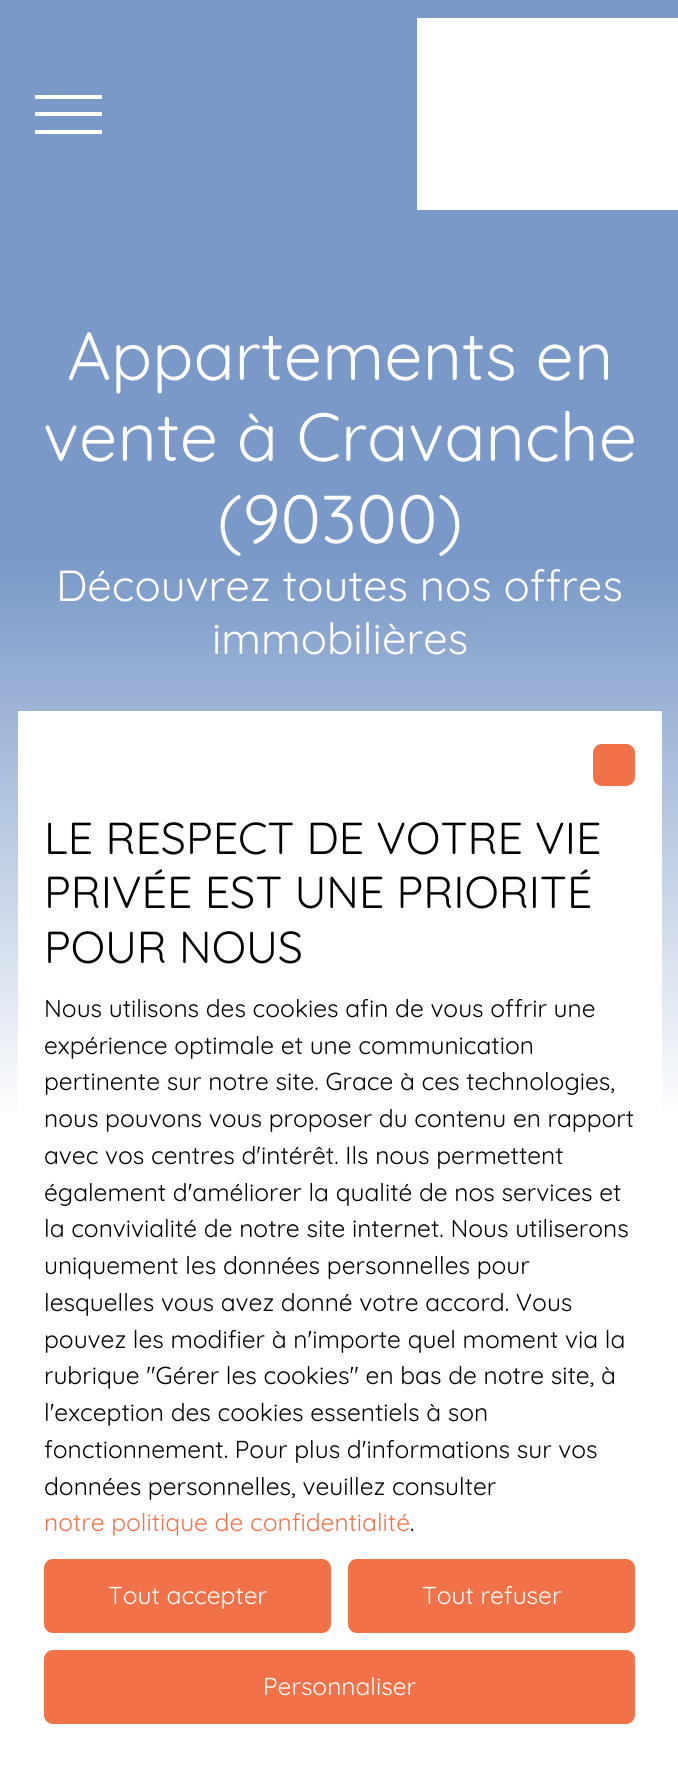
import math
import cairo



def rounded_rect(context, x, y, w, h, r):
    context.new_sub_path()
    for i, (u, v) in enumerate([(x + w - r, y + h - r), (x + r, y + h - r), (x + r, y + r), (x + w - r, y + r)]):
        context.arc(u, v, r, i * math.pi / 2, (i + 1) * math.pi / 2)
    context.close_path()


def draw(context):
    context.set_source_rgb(1, 1, 1)
    context.paint()
    gradient = cairo.LinearGradient(339, -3.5, 340, 1122)
    gradient.add_color_stop_rgba(0.5, 122 / 255, 153 / 255, 200 / 255, 1)
    gradient.add_color_stop_rgba(1, 1, 1, 1, 1)
    context.set_source(gradient)
    context.rectangle(0, 0, 678, 1112)
    context.fill()
    context.set_source_rgb(1, 1, 1)
    context.rectangle(35, 95, 67, 4)
    context.fill()
    context.rectangle(35, 112, 67, 4)
    context.fill()
    context.rectangle(35, 130, 67, 4)
    context.fill()
    context.rectangle(417, 18, 261, 192)
    context.fill()
    context.new_path()
    context.move_to(0, 1122)
    context.line_to(340, 1122)
    context.line_to(340, 982)
    context.close_path()
    context.fill()
    context.new_path()
    context.move_to(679, 1122)
    context.line_to(340, 1122)
    context.line_to(340, 982)
    context.close_path()
    context.fill()
    context.rectangle(18, 711, 644, 401)
    context.fill()
    context.set_source_rgb(241 / 255, 114 / 255, 73 / 255)
    rounded_rect(context, 595, 746, 38, 38, 7)
    context.fill_preserve()
    context.set_line_width(4)
    context.stroke()
    rounded_rect(context, 46, 1561, 283, 70, 7)
    context.fill_preserve()
    context.stroke()
    rounded_rect(context, 350, 1561, 283, 70, 7)
    context.fill_preserve()
    context.stroke()
    rounded_rect(context, 46, 1652, 587, 70, 7)
    context.fill_preserve()
    context.stroke()
    context.select_font_face("Quicksand")
    context.set_font_size(68)
    context.set_source_rgb(1, 1, 1)
    context.move_to(67, 380)
    context.show_text("Appartements en")
    context.move_to(43, 461)
    context.show_text("vente à Cravanche")
    context.move_to(217, 543)
    context.show_text("(90300)")
    context.set_font_size(43.5)
    context.move_to(56, 601)
    context.show_text("Découvrez toutes nos offres")
    context.move_to(212, 654)
    context.show_text("immobilières")
    context.set_font_size(44.75)
    context.set_source_rgb(0, 0, 0)
    context.move_to(44, 854)
    context.show_text("LE RESPECT DE VOTRE VIE")
    context.move_to(44, 908)
    context.show_text("PRIVÉE EST UNE PRIORITÉ")
    context.move_to(44, 963)
    context.show_text("POUR NOUS")
    context.set_font_size(24.5)
    context.move_to(44, 1017)
    context.show_text("Nous utilisons des cookies afin de vous offrir une")
    context.move_to(44, 1054)
    context.show_text("expérience optimale et une communication")
    context.move_to(44, 1090)
    context.show_text("pertinente sur notre site. Grace à ces technologies,")
    context.move_to(44, 1127)
    context.show_text("nous pouvons vous proposer du contenu en rapport")
    context.move_to(44, 1164)
    context.show_text("avec vos centres d'intérêt. Ils nous permettent")
    context.move_to(44, 1201)
    context.show_text("également d'améliorer la qualité de nos services et")
    context.move_to(44, 1237)
    context.show_text("la convivialité de notre site internet. Nous utiliserons")
    context.move_to(44, 1274)
    context.show_text("uniquement les données personnelles pour")
    context.move_to(44, 1311)
    context.show_text("lesquelles vous avez donné votre accord. Vous")
    context.move_to(44, 1348)
    context.show_text("pouvez les modifier à n'importe quel moment via la")
    context.move_to(44, 1384)
    context.show_text("rubrique ″Gérer les cookies″ en bas de notre site, à")
    context.move_to(44, 1421)
    context.show_text("l'exception des cookies essentiels à son")
    context.move_to(44, 1458)
    context.show_text("fonctionnement. Pour plus d'informations sur vos")
    context.move_to(44, 1495)
    context.show_text("données personnelles, veuillez consulter")
    context.set_source_rgb(241 / 255, 114 / 255, 73 / 255)
    context.move_to(44, 1531)
    context.show_text("notre politique de confidentialité")
    context.set_source_rgb(0, 0, 0)
    context.move_to(410, 1531)
    context.show_text(".")
    context.set_source_rgb(1, 1, 1)
    context.move_to(108, 1604)
    context.show_text("Tout accepter")
    context.move_to(422, 1604)
    context.show_text("Tout refuser")
    context.move_to(263, 1695)
    context.show_text("Personnaliser")


surface = cairo.ImageSurface(cairo.Format.RGB24, 678, 1767)
context = cairo.Context(surface)
options = cairo.FontOptions()
options.set_hint_metrics(cairo.HintMetrics.OFF)
options.set_hint_style(cairo.HintStyle.NONE)
context.set_font_options(options)
context.set_miter_limit(4)
draw(context)
surface.write_to_png("out.png")
